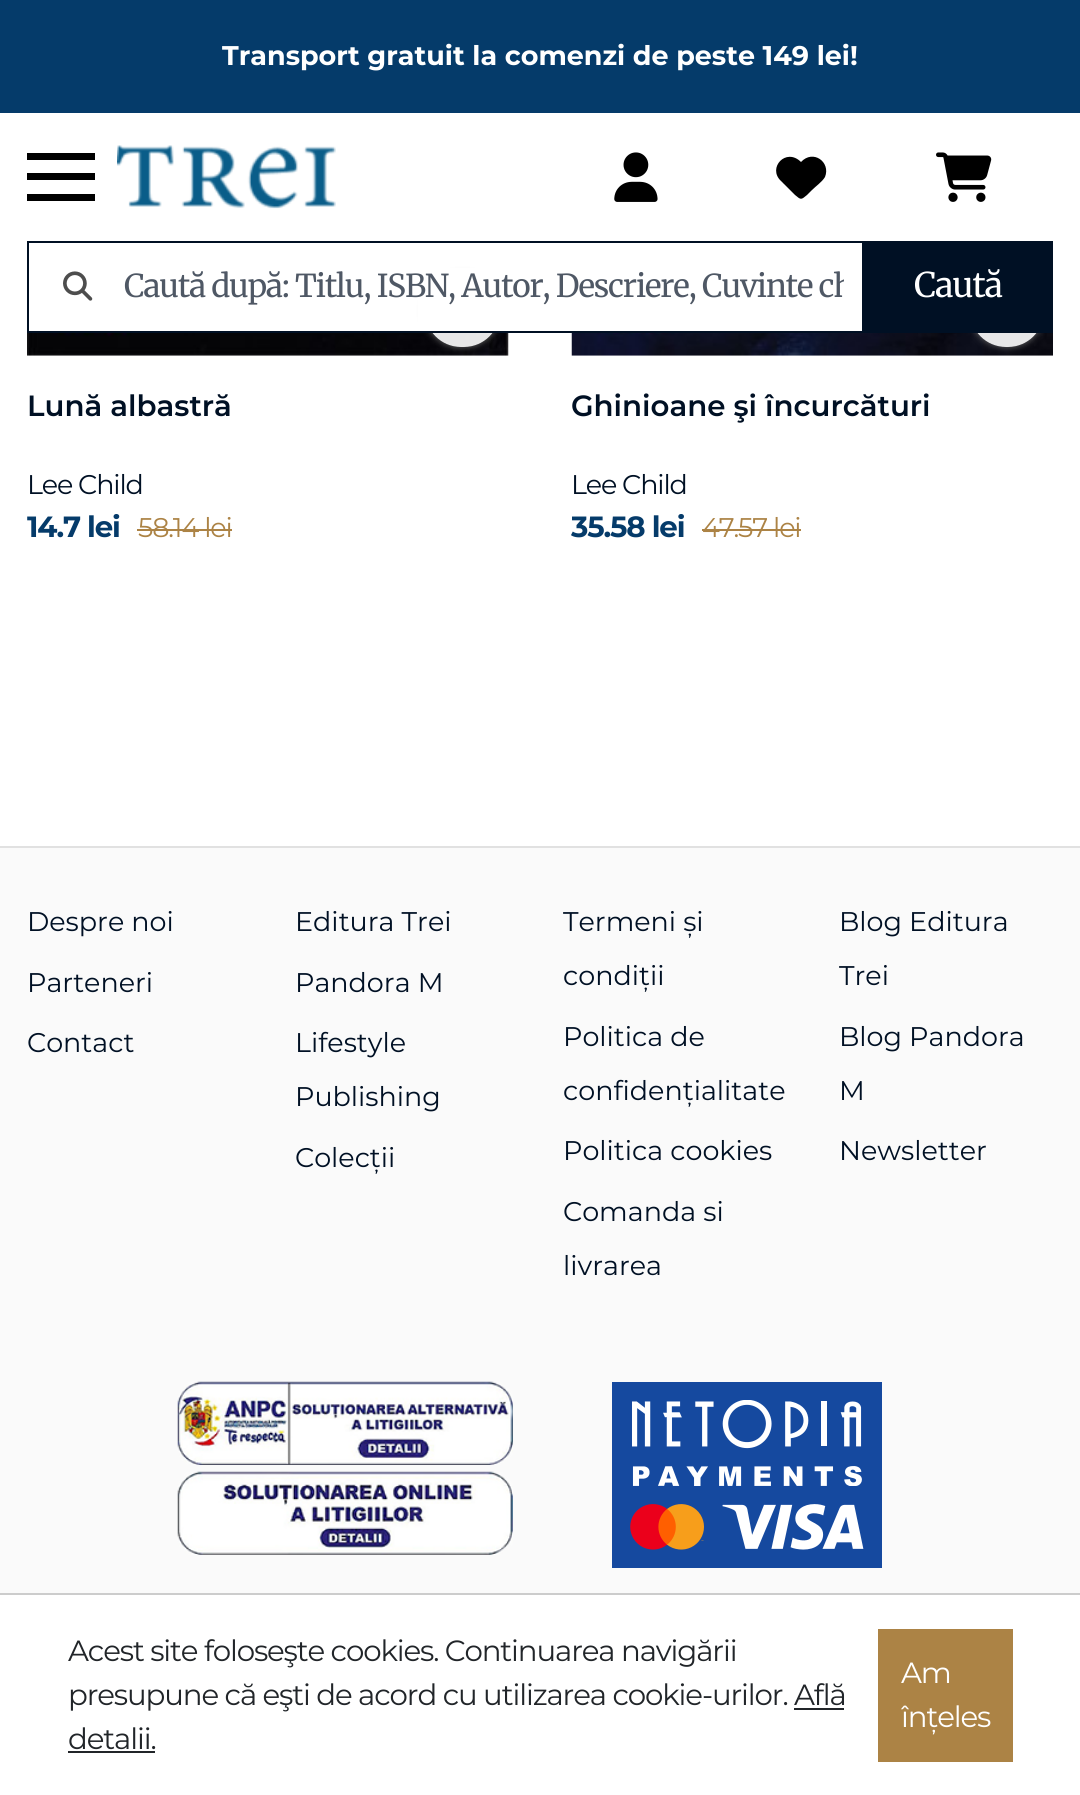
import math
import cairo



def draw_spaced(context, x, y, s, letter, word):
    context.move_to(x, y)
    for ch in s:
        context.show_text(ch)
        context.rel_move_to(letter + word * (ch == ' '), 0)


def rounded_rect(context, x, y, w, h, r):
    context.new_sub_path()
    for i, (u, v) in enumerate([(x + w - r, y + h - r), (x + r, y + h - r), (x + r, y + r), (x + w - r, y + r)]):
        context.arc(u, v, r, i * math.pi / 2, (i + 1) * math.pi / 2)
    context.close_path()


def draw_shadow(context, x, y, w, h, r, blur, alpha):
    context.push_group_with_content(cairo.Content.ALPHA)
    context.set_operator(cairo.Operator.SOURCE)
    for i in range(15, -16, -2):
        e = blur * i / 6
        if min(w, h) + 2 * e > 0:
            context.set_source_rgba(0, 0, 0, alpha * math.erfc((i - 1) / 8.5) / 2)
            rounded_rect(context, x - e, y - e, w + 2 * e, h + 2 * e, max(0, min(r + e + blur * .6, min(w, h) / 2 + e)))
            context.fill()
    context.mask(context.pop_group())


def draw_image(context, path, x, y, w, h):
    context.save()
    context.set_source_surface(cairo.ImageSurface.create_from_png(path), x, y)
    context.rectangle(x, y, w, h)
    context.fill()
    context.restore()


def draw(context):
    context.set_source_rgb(1, 1, 1)
    context.paint()
    draw_image(context, "images/5.png", 27, 333, 482, 23)
    context.save()
    context.set_fill_rule(cairo.FillRule.EVEN_ODD)
    context.new_path()
    context.move_to(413, 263)
    context.line_to(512, 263)
    context.line_to(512, 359)
    context.line_to(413, 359)
    context.close_path()
    context.move_to(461, 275)
    context.line_to(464, 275)
    context.curve_to(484, 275, 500, 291, 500, 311)
    context.curve_to(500, 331, 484, 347, 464, 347)
    context.line_to(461, 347)
    context.curve_to(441, 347, 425, 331, 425, 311)
    context.curve_to(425, 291, 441, 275, 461, 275)
    context.close_path()
    context.clip()
    context.set_source_rgb(102 / 255, 102 / 255, 102 / 255)
    draw_shadow(context, 425, 275, 75, 72, 36, 3.5, 1)
    context.restore()
    context.set_source_rgba(1, 1, 1, 0.9)
    rounded_rect(context, 425, 275, 75, 72, 36)
    context.fill()
    draw_image(context, "images/6.png", 571, 333, 482, 23)
    context.save()
    context.set_fill_rule(cairo.FillRule.EVEN_ODD)
    context.new_path()
    context.move_to(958, 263)
    context.line_to(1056, 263)
    context.line_to(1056, 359)
    context.line_to(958, 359)
    context.close_path()
    context.move_to(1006, 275)
    context.line_to(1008, 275)
    context.curve_to(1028, 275, 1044, 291, 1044, 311)
    context.curve_to(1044, 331, 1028, 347, 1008, 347)
    context.line_to(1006, 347)
    context.curve_to(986, 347, 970, 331, 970, 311)
    context.curve_to(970, 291, 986, 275, 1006, 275)
    context.close_path()
    context.clip()
    context.set_source_rgb(102 / 255, 102 / 255, 102 / 255)
    draw_shadow(context, 970, 275, 74, 72, 36, 3.5, 1)
    context.restore()
    rounded_rect(context, 970, 275, 74, 72, 36)
    context.fill()
    context.set_source_rgb(1, 1, 1)
    context.rectangle(418, 268, 633, 65)
    context.fill()
    context.set_source_rgb(5 / 255, 59 / 255, 106 / 255)
    context.rectangle(0, 0, 1080, 113)
    context.fill()
    context.set_source_rgb(0, 0, 0)
    context.rectangle(27, 153, 68, 7)
    context.fill()
    context.rectangle(27, 173, 68, 7)
    context.fill()
    context.rectangle(27, 194, 68, 7)
    context.fill()
    draw_image(context, "images/1.png", 117, 145, 219, 64)
    draw_image(context, "images/2.png", 614, 152, 44, 50)
    context.new_path()
    context.move_to(781, 181)
    context.line_to(798, 198)
    context.line_to(781, 181)
    context.line_to(795, 195)
    context.curve_to(801, 200, 801, 200, 807, 195)
    context.line_to(812, 190)
    context.curve_to(816, 186, 822, 182, 825, 177)
    context.curve_to(831, 162, 813, 149, 801, 162)
    context.curve_to(786, 147, 767, 168, 781, 181)
    context.close_path()
    context.fill()
    draw_image(context, "images/3.png", 936, 152, 56, 50)
    draw_image(context, "images/4.png", 63, 271, 30, 30)
    context.set_source_rgb(0, 16 / 255, 36 / 255)
    context.rectangle(27, 241, 835, 2)
    context.fill()
    context.rectangle(27, 331, 835, 2)
    context.fill()
    context.rectangle(27, 241, 2, 92)
    context.fill()
    context.rectangle(862, 241, 191, 92)
    context.fill()
    context.set_source_rgb(172 / 255, 131 / 255, 69 / 255)
    context.rectangle(137, 529, 95, 2)
    context.fill()
    context.rectangle(702, 529, 99, 2)
    context.fill()
    context.set_source_rgb(250 / 255, 250 / 255, 250 / 255)
    context.rectangle(0, 848, 1080, 745)
    context.fill()
    context.set_source_rgb(225 / 255, 225 / 255, 225 / 255)
    context.rectangle(0, 846, 1080, 2)
    context.fill()
    draw_image(context, "images/7.png", 177, 1381, 336, 84)
    draw_image(context, "images/8.png", 177, 1471, 336, 84)
    context.set_source_rgb(21 / 255, 73 / 255, 159 / 255)
    context.rectangle(612, 1382, 270, 186)
    context.fill()
    draw_image(context, "images/9.png", 630, 1400, 234, 150)
    context.set_source_rgb(204 / 255, 204 / 255, 204 / 255)
    context.rectangle(0, 1593, 1080, 2)
    context.fill()
    context.set_source_rgb(33 / 255, 37 / 255, 41 / 255)
    context.rectangle(794, 1708, 50, 2)
    context.fill()
    context.rectangle(68, 1751, 87, 2)
    context.fill()
    context.set_source_rgb(172 / 255, 131 / 255, 69 / 255)
    context.rectangle(878, 1629, 135, 133)
    context.fill()
    context.select_font_face("Montserrat", cairo.FontSlant.NORMAL, cairo.FontWeight.BOLD)
    context.set_font_size(27)
    context.set_source_rgb(1, 1, 1)
    context.move_to(222, 65)
    context.show_text("Transport gratuit la comenzi de peste 149 lei!")
    context.save()
    context.rectangle(124, 266, 720, 40)
    context.clip()
    context.select_font_face("Merriweather")
    context.set_font_size(31.5)
    context.set_source_rgb(79 / 255, 88 / 255, 101 / 255)
    draw_spaced(context, 124, 297, "Caută după: Titlu, ISBN, Autor, Descriere, Cuvinte ch", -1.12, 0)
    context.restore()
    context.select_font_face("Merriweather")
    context.set_font_size(34)
    draw_spaced(context, 914, 297, "Caută", -1.12, 0)
    context.select_font_face("Montserrat SemiBold")
    context.set_font_size(29.25)
    context.set_source_rgb(0, 16 / 255, 36 / 255)
    context.move_to(27, 416)
    context.show_text("Lună albastră")
    context.select_font_face("Montserrat")
    context.set_font_size(27)
    draw_spaced(context, 27, 494, "Lee Child", -1.12, 0)
    context.select_font_face("Montserrat", cairo.FontSlant.NORMAL, cairo.FontWeight.BOLD)
    context.set_font_size(29.25)
    context.set_source_rgb(5 / 255, 59 / 255, 106 / 255)
    draw_spaced(context, 27, 537, "14.7 lei", -1.12, 0)
    context.select_font_face("Montserrat")
    context.set_font_size(27)
    context.set_source_rgb(172 / 255, 131 / 255, 69 / 255)
    draw_spaced(context, 138, 537, "58.14 lei", -1.12, 0)
    context.select_font_face("Montserrat SemiBold")
    context.set_font_size(29.25)
    context.set_source_rgb(0, 16 / 255, 36 / 255)
    context.move_to(571, 416)
    context.show_text("Ghinioane şi încurcături")
    context.select_font_face("Montserrat")
    context.set_font_size(27)
    draw_spaced(context, 571, 494, "Lee Child", -1.12, 0)
    context.select_font_face("Montserrat", cairo.FontSlant.NORMAL, cairo.FontWeight.BOLD)
    context.set_font_size(29.25)
    context.set_source_rgb(5 / 255, 59 / 255, 106 / 255)
    draw_spaced(context, 571, 537, "35.58 lei", -1.12, 0)
    context.select_font_face("Montserrat")
    context.set_font_size(27)
    context.set_source_rgb(172 / 255, 131 / 255, 69 / 255)
    draw_spaced(context, 702, 537, "47.57 lei", -1.12, 0)
    context.set_source_rgb(0, 16 / 255, 36 / 255)
    context.move_to(27, 931)
    context.show_text("Despre noi")
    context.move_to(27, 992)
    context.show_text("Parteneri")
    context.move_to(27, 1052)
    context.show_text("Contact")
    context.move_to(295, 931)
    context.show_text("Editura Trei")
    context.move_to(295, 992)
    context.show_text("Pandora M")
    context.move_to(295, 1052)
    context.show_text("Lifestyle")
    context.move_to(295, 1106)
    context.show_text("Publishing")
    context.move_to(295, 1167)
    context.show_text("Colecții")
    context.move_to(563, 931)
    context.show_text("Termeni și")
    context.move_to(563, 985)
    context.show_text("condiții")
    context.move_to(563, 1046)
    context.show_text("Politica de")
    context.move_to(563, 1100)
    context.show_text("confidențialitate")
    context.move_to(563, 1160)
    context.show_text("Politica cookies")
    context.move_to(563, 1221)
    context.show_text("Comanda si")
    context.move_to(563, 1275)
    context.show_text("livrarea")
    context.move_to(839, 931)
    context.show_text("Blog Editura")
    context.move_to(839, 985)
    context.show_text("Trei")
    context.move_to(839, 1046)
    context.show_text("Blog Pandora")
    context.move_to(839, 1100)
    context.show_text("M")
    context.move_to(839, 1160)
    context.show_text("Newsletter")
    context.set_font_size(29.25)
    context.set_source_rgb(33 / 255, 37 / 255, 41 / 255)
    draw_spaced(context, 68, 1661, "Acest site foloseşte cookies. Continuarea navigării", -1.12, 0)
    draw_spaced(context, 68, 1705, "presupune că eşti de acord cu utilizarea cookie-urilor. Află", -1.12, 0)
    draw_spaced(context, 68, 1749, "detalii.", -1.12, 0)
    context.set_source_rgb(1, 1, 1)
    draw_spaced(context, 901, 1683, "Am", -1.12, 0)
    draw_spaced(context, 901, 1727, "înțeles", -1.12, 0)


surface = cairo.ImageSurface(cairo.Format.RGB24, 1080, 1795)
context = cairo.Context(surface)
options = cairo.FontOptions()
options.set_hint_metrics(cairo.HintMetrics.OFF)
options.set_hint_style(cairo.HintStyle.NONE)
context.set_font_options(options)
context.set_miter_limit(4)
draw(context)
surface.write_to_png("out.png")
